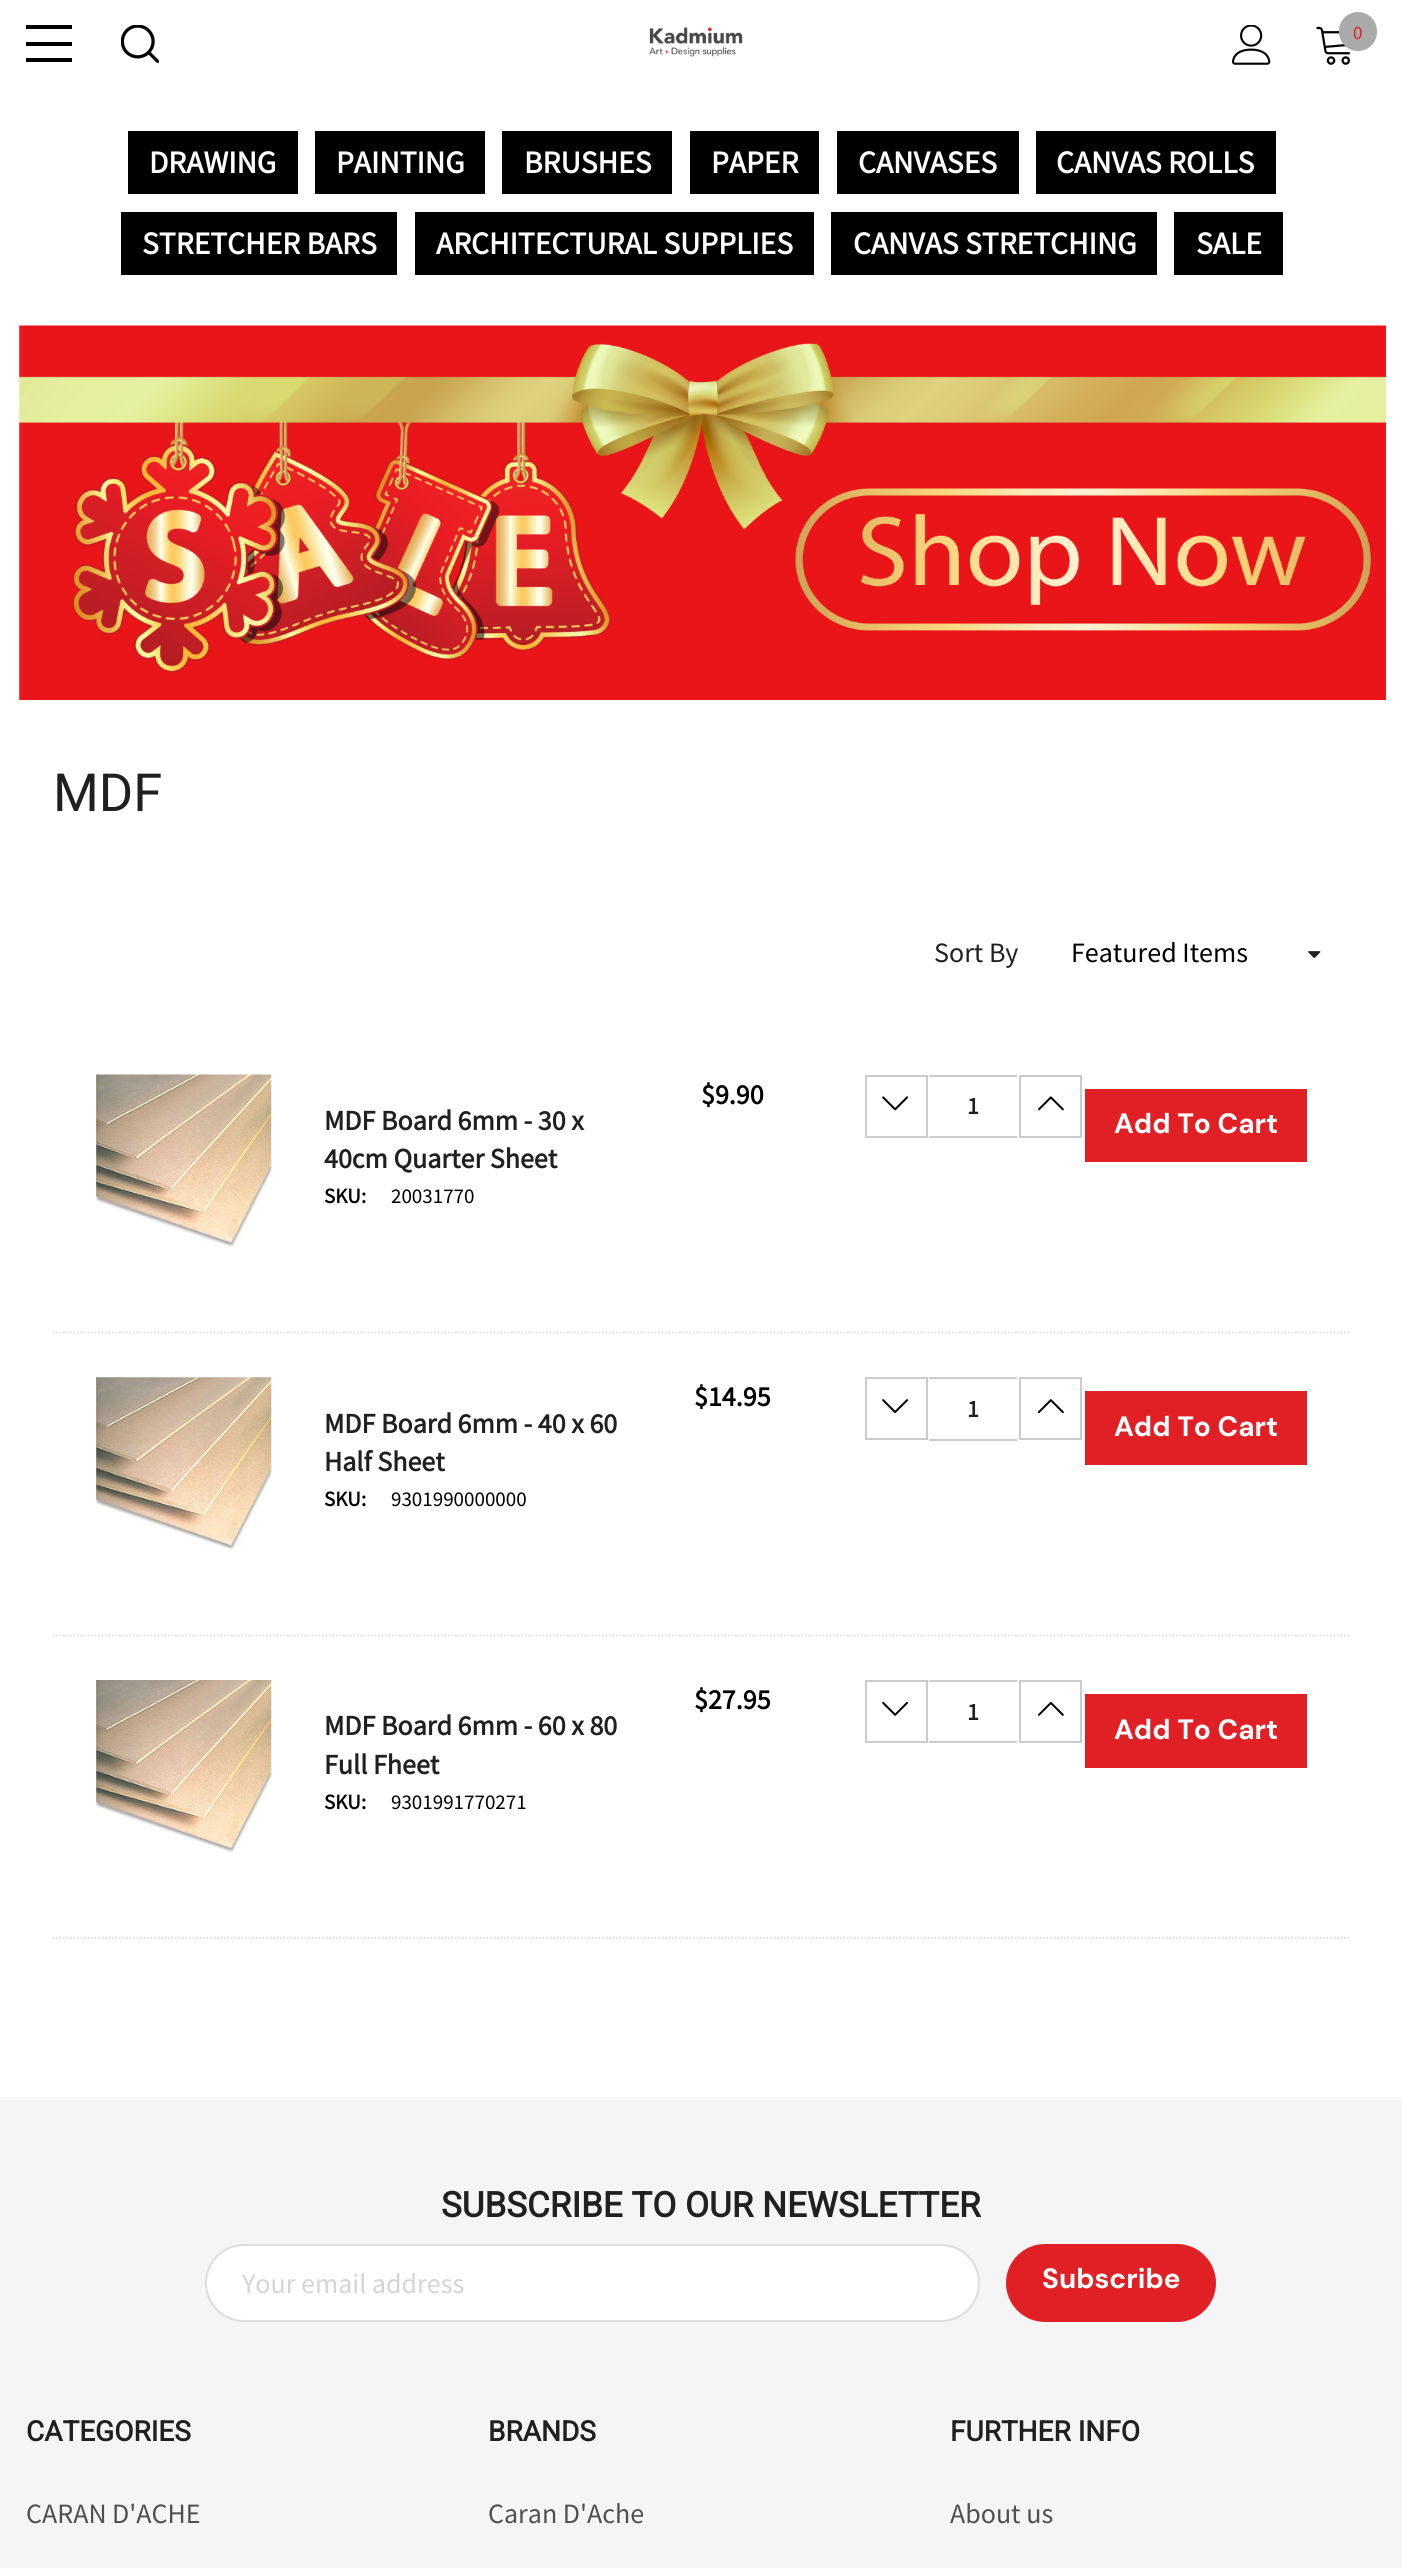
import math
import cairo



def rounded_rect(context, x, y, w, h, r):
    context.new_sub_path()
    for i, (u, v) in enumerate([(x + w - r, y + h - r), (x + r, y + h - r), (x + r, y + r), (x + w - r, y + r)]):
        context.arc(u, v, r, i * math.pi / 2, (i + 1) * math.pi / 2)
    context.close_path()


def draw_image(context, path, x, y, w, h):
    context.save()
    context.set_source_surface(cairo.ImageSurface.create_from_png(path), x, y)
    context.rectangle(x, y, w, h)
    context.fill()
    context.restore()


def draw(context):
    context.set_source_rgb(1, 1, 1)
    context.paint()
    context.set_source_rgb(0, 0, 0)
    context.rectangle(26, 42, 46, 4)
    context.fill()
    context.rectangle(26, 25, 46, 4)
    context.fill()
    context.rectangle(26, 58, 46, 4)
    context.fill()
    draw_image(context, "images/1.png", 121, 25, 38, 38)
    draw_image(context, "images/2.png", 649, 27, 94, 30)
    draw_image(context, "images/3.png", 1232, 25, 39, 40)
    draw_image(context, "images/4.png", 1316, 26, 34, 39)
    context.set_source_rgb(170 / 255, 170 / 255, 170 / 255)
    rounded_rect(context, 1339, 12, 38, 39, 19)
    context.fill()
    context.set_source_rgb(0, 0, 0)
    context.rectangle(128, 131, 170, 63)
    context.fill()
    context.rectangle(315, 131, 170, 63)
    context.fill()
    context.rectangle(502, 131, 170, 63)
    context.fill()
    context.rectangle(690, 131, 129, 63)
    context.fill()
    context.rectangle(837, 131, 182, 63)
    context.fill()
    context.rectangle(1036, 131, 240, 63)
    context.fill()
    context.rectangle(121, 212, 276, 63)
    context.fill()
    context.rectangle(415, 212, 399, 63)
    context.fill()
    context.rectangle(831, 212, 326, 63)
    context.fill()
    context.rectangle(1174, 212, 109, 63)
    context.fill()
    draw_image(context, "images/5.png", 19, 325, 1367, 375)
    draw_image(context, "images/6.png", 1308, 951, 13, 7)
    context.new_path()
    context.move_to(52.5, 1332.5)
    context.line_to(1351, 1332.5)
    context.set_source_rgb(220 / 255, 220 / 255, 220 / 255)
    context.set_line_width(1.8)
    context.set_dash([1.75, 1.75])
    context.stroke()
    draw_image(context, "images/7.png", 96, 1074, 176, 174)
    context.rectangle(866, 1076, 61, 61)
    context.set_source_rgb(203 / 255, 203 / 255, 203 / 255)
    context.set_line_width(2)
    context.set_dash([])
    context.stroke()
    draw_image(context, "images/8.png", 882, 1096, 26, 15)
    context.rectangle(929, 1075, 88, 2)
    context.fill()
    context.rectangle(929, 1136, 88, 2)
    context.fill()
    context.rectangle(1020, 1076, 61, 61)
    context.stroke()
    draw_image(context, "images/9.png", 1038, 1096, 26, 15)
    context.set_source_rgb(225 / 255, 32 / 255, 38 / 255)
    context.rectangle(1085, 1089, 222, 73)
    context.fill()
    context.new_path()
    context.move_to(52.5, 1635.5)
    context.line_to(1351, 1635.5)
    context.set_source_rgb(220 / 255, 220 / 255, 220 / 255)
    context.set_line_width(1.8)
    context.set_dash([1.75, 1.75])
    context.stroke()
    draw_image(context, "images/10.png", 96, 1377, 176, 173)
    context.rectangle(866, 1378, 61, 61)
    context.set_source_rgb(203 / 255, 203 / 255, 203 / 255)
    context.set_line_width(2)
    context.set_dash([])
    context.stroke()
    draw_image(context, "images/11.png", 882, 1399, 26, 15)
    context.rectangle(929, 1377, 88, 2)
    context.fill()
    context.rectangle(929, 1439, 88, 2)
    context.fill()
    context.rectangle(1020, 1378, 61, 61)
    context.stroke()
    draw_image(context, "images/12.png", 1038, 1399, 26, 15)
    context.set_source_rgb(225 / 255, 32 / 255, 38 / 255)
    context.rectangle(1085, 1391, 222, 74)
    context.fill()
    context.new_path()
    context.move_to(52.5, 1938)
    context.line_to(1351, 1938)
    context.set_source_rgb(220 / 255, 220 / 255, 220 / 255)
    context.set_line_width(1.8)
    context.set_dash([1.75, 1.75])
    context.stroke()
    draw_image(context, "images/13.png", 96, 1680, 176, 173)
    context.rectangle(866, 1681, 61, 61)
    context.set_source_rgb(203 / 255, 203 / 255, 203 / 255)
    context.set_line_width(2)
    context.set_dash([])
    context.stroke()
    draw_image(context, "images/14.png", 882, 1701, 26, 15)
    context.rectangle(929, 1680, 88, 2)
    context.fill()
    context.rectangle(929, 1741, 88, 2)
    context.fill()
    context.rectangle(1020, 1681, 61, 61)
    context.stroke()
    draw_image(context, "images/15.png", 1038, 1701, 26, 15)
    context.set_source_rgb(225 / 255, 32 / 255, 38 / 255)
    context.rectangle(1085, 1694, 222, 74)
    context.fill()
    context.set_source_rgb(245 / 255, 245 / 255, 245 / 255)
    context.rectangle(0, 2097, 1402, 471)
    context.fill()
    context.set_source_rgb(1, 1, 1)
    rounded_rect(context, 206, 2245, 773, 76, 38)
    context.fill_preserve()
    context.set_source_rgb(221 / 255, 221 / 255, 221 / 255)
    context.stroke()
    context.set_source_rgb(225 / 255, 32 / 255, 38 / 255)
    rounded_rect(context, 1007, 2245, 208, 76, 38)
    context.fill_preserve()
    context.stroke()
    context.select_font_face("Source Sans Pro")
    context.set_font_size(19)
    context.move_to(1353, 39)
    context.show_text("0")
    context.select_font_face("Source Sans Pro", cairo.FontSlant.NORMAL, cairo.FontWeight.BOLD)
    context.set_font_size(31.5)
    context.set_source_rgb(1, 1, 1)
    context.move_to(149, 173)
    context.show_text("DRAWING")
    context.move_to(336, 173)
    context.show_text("PAINTING")
    context.move_to(524, 173)
    context.show_text("BRUSHES")
    context.move_to(711, 173)
    context.show_text("PAPER")
    context.move_to(858, 173)
    context.show_text("CANVASES")
    context.move_to(1056, 173)
    context.show_text("CANVAS ROLLS")
    context.move_to(142, 254)
    context.show_text("STRETCHER BARS")
    context.move_to(436, 254)
    context.show_text("ARCHITECTURAL SUPPLIES")
    context.move_to(853, 254)
    context.show_text("CANVAS STRETCHING")
    context.move_to(1196, 254)
    context.show_text("SALE")
    context.select_font_face("Roboto")
    context.set_font_size(52.5)
    context.set_source_rgb(32 / 255, 32 / 255, 32 / 255)
    context.move_to(53, 811)
    context.show_text("MDF")
    context.select_font_face("Source Sans Pro")
    context.set_font_size(28)
    context.move_to(934, 962)
    context.show_text("Sort By")
    context.set_source_rgb(0, 0, 0)
    context.move_to(1071, 962)
    context.show_text("Featured Items")
    context.select_font_face("Source Sans Pro", cairo.FontSlant.NORMAL, cairo.FontWeight.BOLD)
    context.set_source_rgb(32 / 255, 32 / 255, 32 / 255)
    context.move_to(324, 1130)
    context.show_text("MDF Board 6mm - 30 x")
    context.move_to(324, 1168)
    context.show_text("40cm Quarter Sheet")
    context.set_font_size(21)
    context.set_source_rgb(0, 0, 0)
    context.move_to(324, 1203)
    context.show_text("SKU:")
    context.select_font_face("Source Sans Pro")
    context.move_to(391, 1203)
    context.show_text("20031770")
    context.select_font_face("Source Sans Pro", cairo.FontSlant.NORMAL, cairo.FontWeight.BOLD)
    context.set_font_size(28)
    context.move_to(701, 1104)
    context.show_text("$9.90")
    context.set_font_size(24)
    context.set_source_rgb(32 / 255, 32 / 255, 32 / 255)
    context.move_to(967, 1114)
    context.show_text("1")
    context.select_font_face("DM Sans", cairo.FontSlant.NORMAL, cairo.FontWeight.BOLD)
    context.set_font_size(28)
    context.set_source_rgb(1, 1, 1)
    context.move_to(1114, 1133)
    context.show_text("Add To Cart")
    context.select_font_face("Source Sans Pro", cairo.FontSlant.NORMAL, cairo.FontWeight.BOLD)
    context.set_source_rgb(32 / 255, 32 / 255, 32 / 255)
    context.move_to(324, 1433)
    context.show_text("MDF Board 6mm - 40 x 60")
    context.move_to(324, 1471)
    context.show_text("Half Sheet")
    context.set_font_size(21)
    context.set_source_rgb(0, 0, 0)
    context.move_to(324, 1506)
    context.show_text("SKU:")
    context.select_font_face("Source Sans Pro")
    context.move_to(391, 1506)
    context.show_text("9301990000000")
    context.select_font_face("Source Sans Pro", cairo.FontSlant.NORMAL, cairo.FontWeight.BOLD)
    context.set_font_size(28)
    context.move_to(694, 1406)
    context.show_text("$14.95")
    context.set_font_size(24)
    context.set_source_rgb(32 / 255, 32 / 255, 32 / 255)
    context.move_to(967, 1417)
    context.show_text("1")
    context.select_font_face("DM Sans", cairo.FontSlant.NORMAL, cairo.FontWeight.BOLD)
    context.set_font_size(28)
    context.set_source_rgb(1, 1, 1)
    context.move_to(1114, 1436)
    context.show_text("Add To Cart")
    context.select_font_face("Source Sans Pro", cairo.FontSlant.NORMAL, cairo.FontWeight.BOLD)
    context.set_source_rgb(32 / 255, 32 / 255, 32 / 255)
    context.move_to(324, 1735)
    context.show_text("MDF Board 6mm - 60 x 80")
    context.move_to(324, 1774)
    context.show_text("Full Fheet")
    context.set_font_size(21)
    context.set_source_rgb(0, 0, 0)
    context.move_to(324, 1809)
    context.show_text("SKU:")
    context.select_font_face("Source Sans Pro")
    context.move_to(391, 1809)
    context.show_text("9301991770271")
    context.select_font_face("Source Sans Pro", cairo.FontSlant.NORMAL, cairo.FontWeight.BOLD)
    context.set_font_size(28)
    context.move_to(694, 1709)
    context.show_text("$27.95")
    context.set_font_size(24)
    context.set_source_rgb(32 / 255, 32 / 255, 32 / 255)
    context.move_to(967, 1720)
    context.show_text("1")
    context.select_font_face("DM Sans", cairo.FontSlant.NORMAL, cairo.FontWeight.BOLD)
    context.set_font_size(28)
    context.set_source_rgb(1, 1, 1)
    context.move_to(1114, 1739)
    context.show_text("Add To Cart")
    context.select_font_face("Roboto", cairo.FontSlant.NORMAL, cairo.FontWeight.BOLD)
    context.set_font_size(35)
    context.set_source_rgb(32 / 255, 32 / 255, 32 / 255)
    context.move_to(441, 2217)
    context.show_text("SUBSCRIBE TO OUR NEWSLETTER")
    context.select_font_face("Source Sans Pro")
    context.set_font_size(28)
    context.set_source_rgb(212 / 255, 212 / 255, 212 / 255)
    context.move_to(242, 2293)
    context.show_text("Your email address")
    context.select_font_face("DM Sans", cairo.FontSlant.NORMAL, cairo.FontWeight.BOLD)
    context.set_source_rgb(1, 1, 1)
    context.move_to(1042, 2288)
    context.show_text("Subscribe")
    context.select_font_face("Roboto", cairo.FontSlant.NORMAL, cairo.FontWeight.BOLD)
    context.set_source_rgb(32 / 255, 32 / 255, 32 / 255)
    context.move_to(26, 2441)
    context.show_text("CATEGORIES")
    context.select_font_face("Source Sans Pro")
    context.set_source_rgb(80 / 255, 80 / 255, 80 / 255)
    context.move_to(26, 2523)
    context.show_text("CARAN D'ACHE")
    context.select_font_face("Roboto", cairo.FontSlant.NORMAL, cairo.FontWeight.BOLD)
    context.set_source_rgb(32 / 255, 32 / 255, 32 / 255)
    context.move_to(488, 2441)
    context.show_text("BRANDS")
    context.select_font_face("Source Sans Pro")
    context.set_source_rgb(80 / 255, 80 / 255, 80 / 255)
    context.move_to(488, 2523)
    context.show_text("Caran D'Ache")
    context.select_font_face("Roboto", cairo.FontSlant.NORMAL, cairo.FontWeight.BOLD)
    context.set_source_rgb(32 / 255, 32 / 255, 32 / 255)
    context.move_to(950, 2441)
    context.show_text("FURTHER INFO")
    context.select_font_face("Source Sans Pro")
    context.set_source_rgb(80 / 255, 80 / 255, 80 / 255)
    context.move_to(950, 2523)
    context.show_text("About us")


surface = cairo.ImageSurface(cairo.Format.RGB24, 1402, 2568)
context = cairo.Context(surface)
options = cairo.FontOptions()
options.set_hint_metrics(cairo.HintMetrics.OFF)
options.set_hint_style(cairo.HintStyle.NONE)
context.set_font_options(options)
context.set_miter_limit(4)
draw(context)
surface.write_to_png("out.png")
